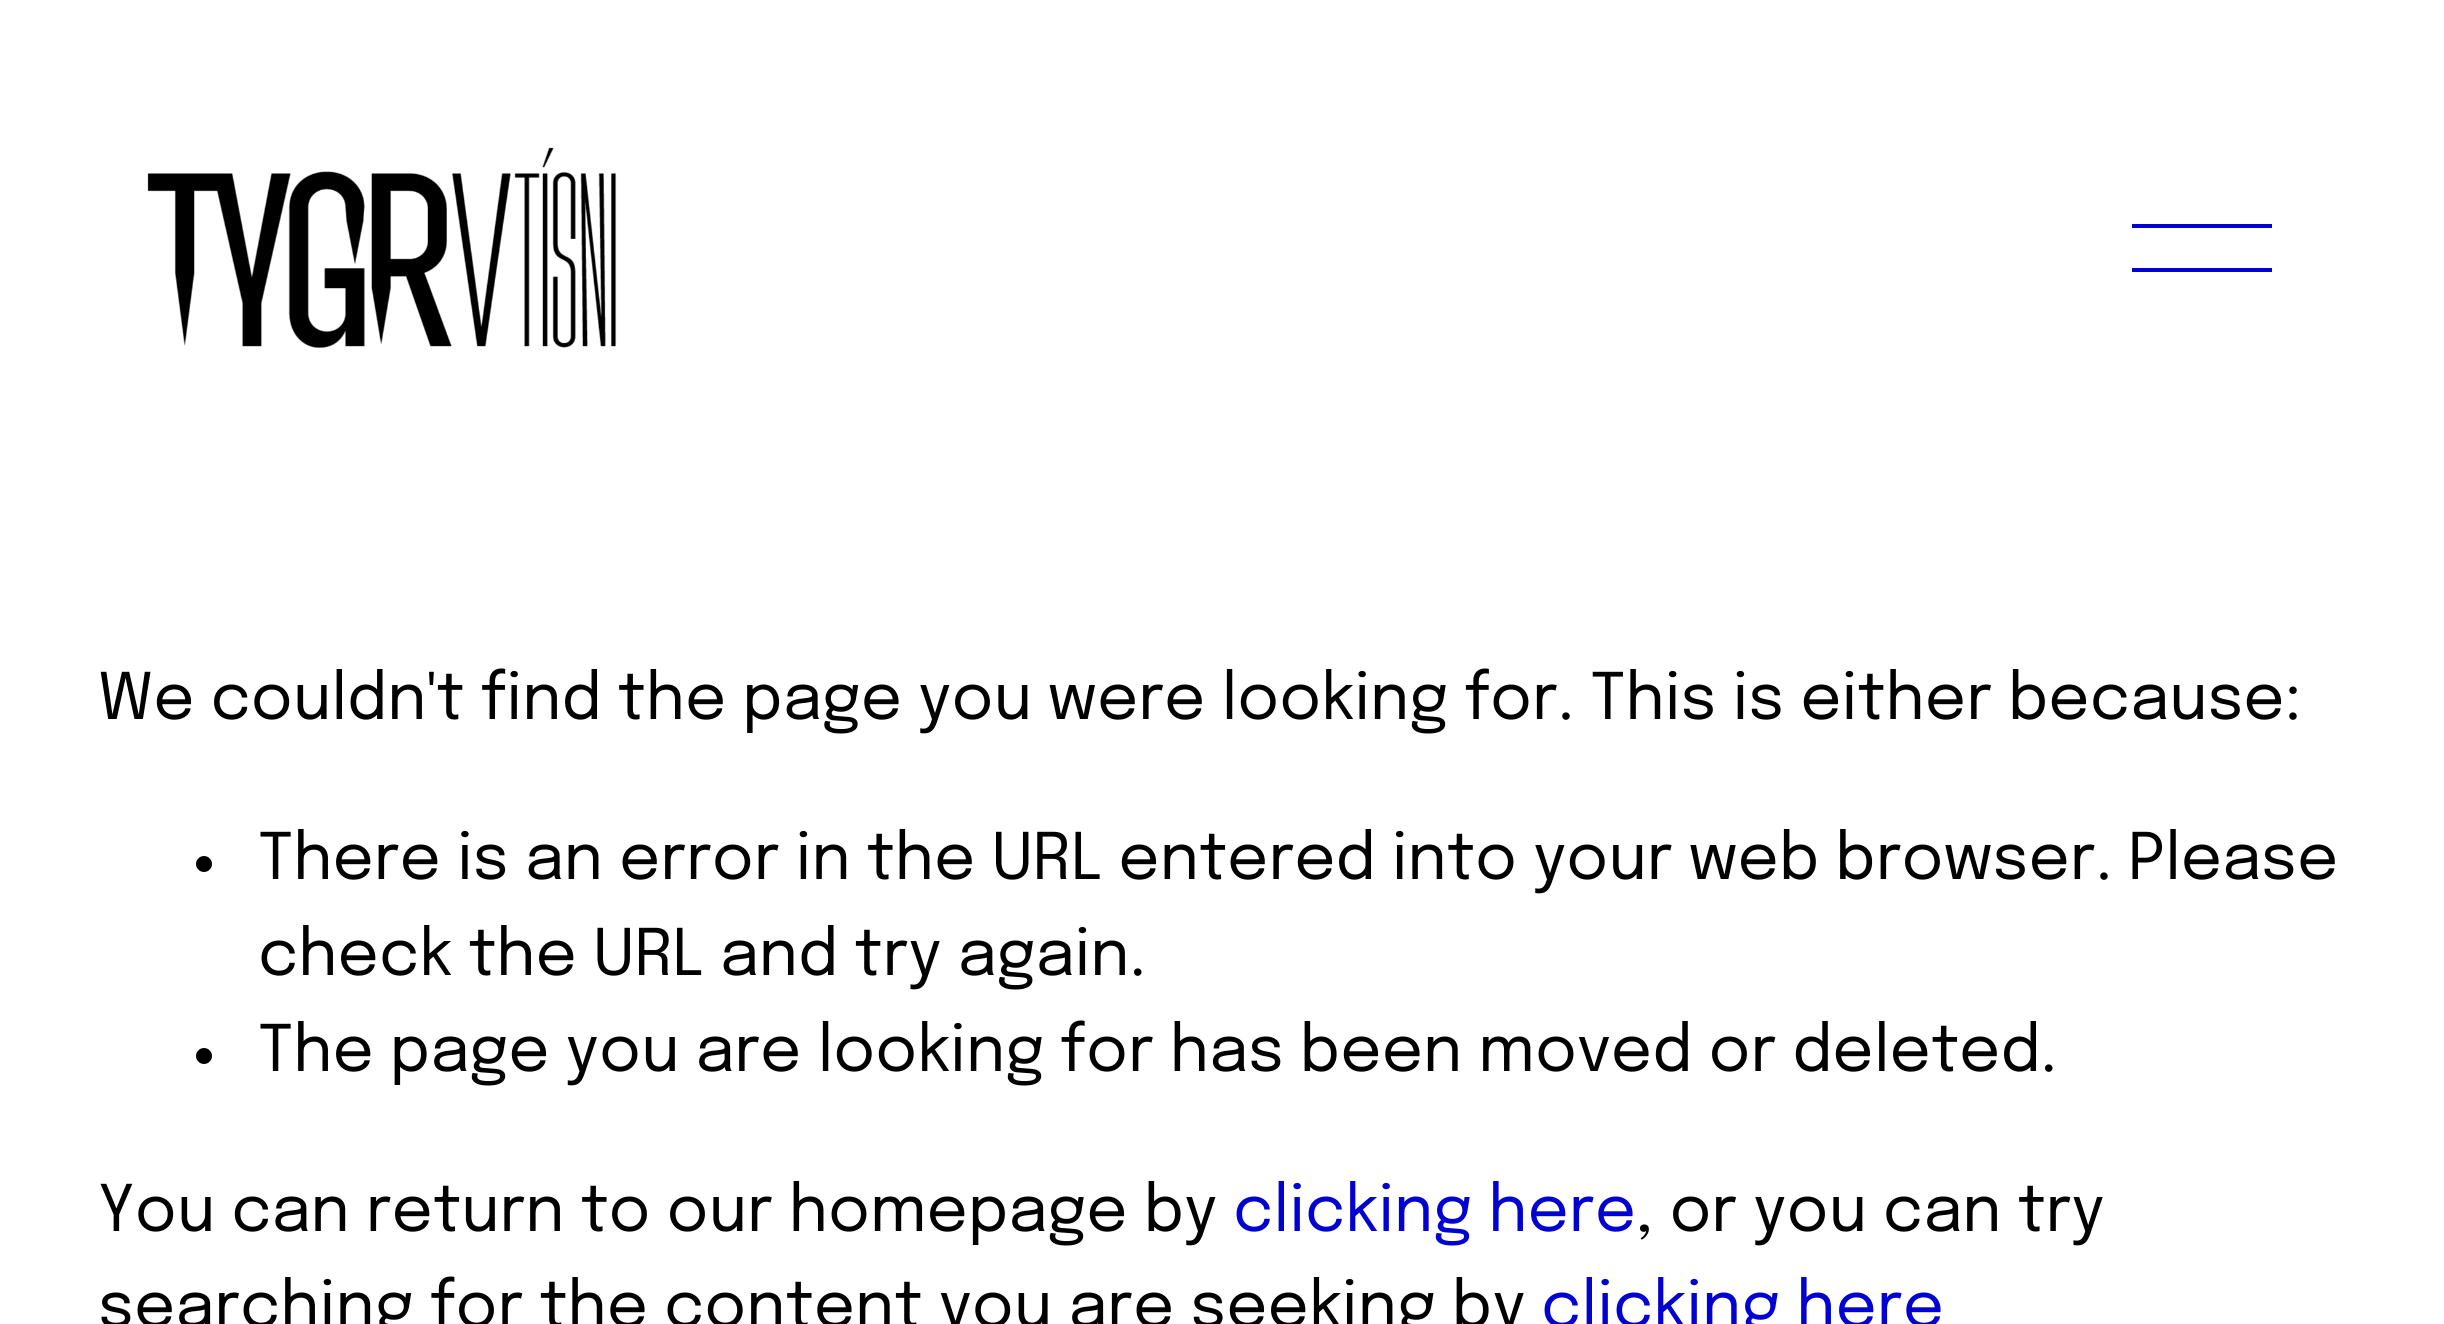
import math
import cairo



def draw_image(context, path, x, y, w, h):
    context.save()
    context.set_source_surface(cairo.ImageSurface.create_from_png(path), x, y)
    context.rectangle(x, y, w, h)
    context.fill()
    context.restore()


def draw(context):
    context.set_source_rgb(1, 1, 1)
    context.paint()
    draw_image(context, "images/1.png", 147, 147, 470, 201)
    context.set_source_rgb(1 / 255, 1 / 255, 210 / 255)
    context.rectangle(2132, 224, 140, 4)
    context.fill()
    context.rectangle(2132, 268, 140, 4)
    context.fill()
    context.set_source_rgb(0, 0, 0)
    context.arc(204, 864, 8, 0, 2 * math.pi)
    context.fill()
    context.arc(204, 1056, 8, 0, 2 * math.pi)
    context.fill()
    context.select_font_face("Epilogue")
    context.set_font_size(64)
    context.move_to(98, 719)
    context.show_text("We couldn't find the page you were looking for. This is either because:")
    context.move_to(258, 879)
    context.show_text("There is an error in the URL entered into your web browser. Please")
    context.move_to(258, 975)
    context.show_text("check the URL and try again.")
    context.move_to(258, 1071)
    context.show_text("The page you are looking for has been moved or deleted.")
    context.move_to(98, 1231)
    context.show_text("You can return to our homepage by")
    context.set_source_rgb(1 / 255, 1 / 255, 210 / 255)
    context.move_to(1233, 1231)
    context.show_text("clicking here")
    context.set_source_rgb(0, 0, 0)
    context.move_to(1636, 1231)
    context.show_text(", or you can try")
    context.move_to(98, 1327)
    context.show_text("searching for the content you are seeking by")
    context.set_source_rgb(1 / 255, 1 / 255, 210 / 255)
    context.move_to(1541, 1327)
    context.show_text("clicking here")


surface = cairo.ImageSurface(cairo.Format.RGB24, 2444, 1324)
context = cairo.Context(surface)
options = cairo.FontOptions()
options.set_hint_metrics(cairo.HintMetrics.OFF)
options.set_hint_style(cairo.HintStyle.NONE)
context.set_font_options(options)
context.set_miter_limit(4)
draw(context)
surface.write_to_png("out.png")
